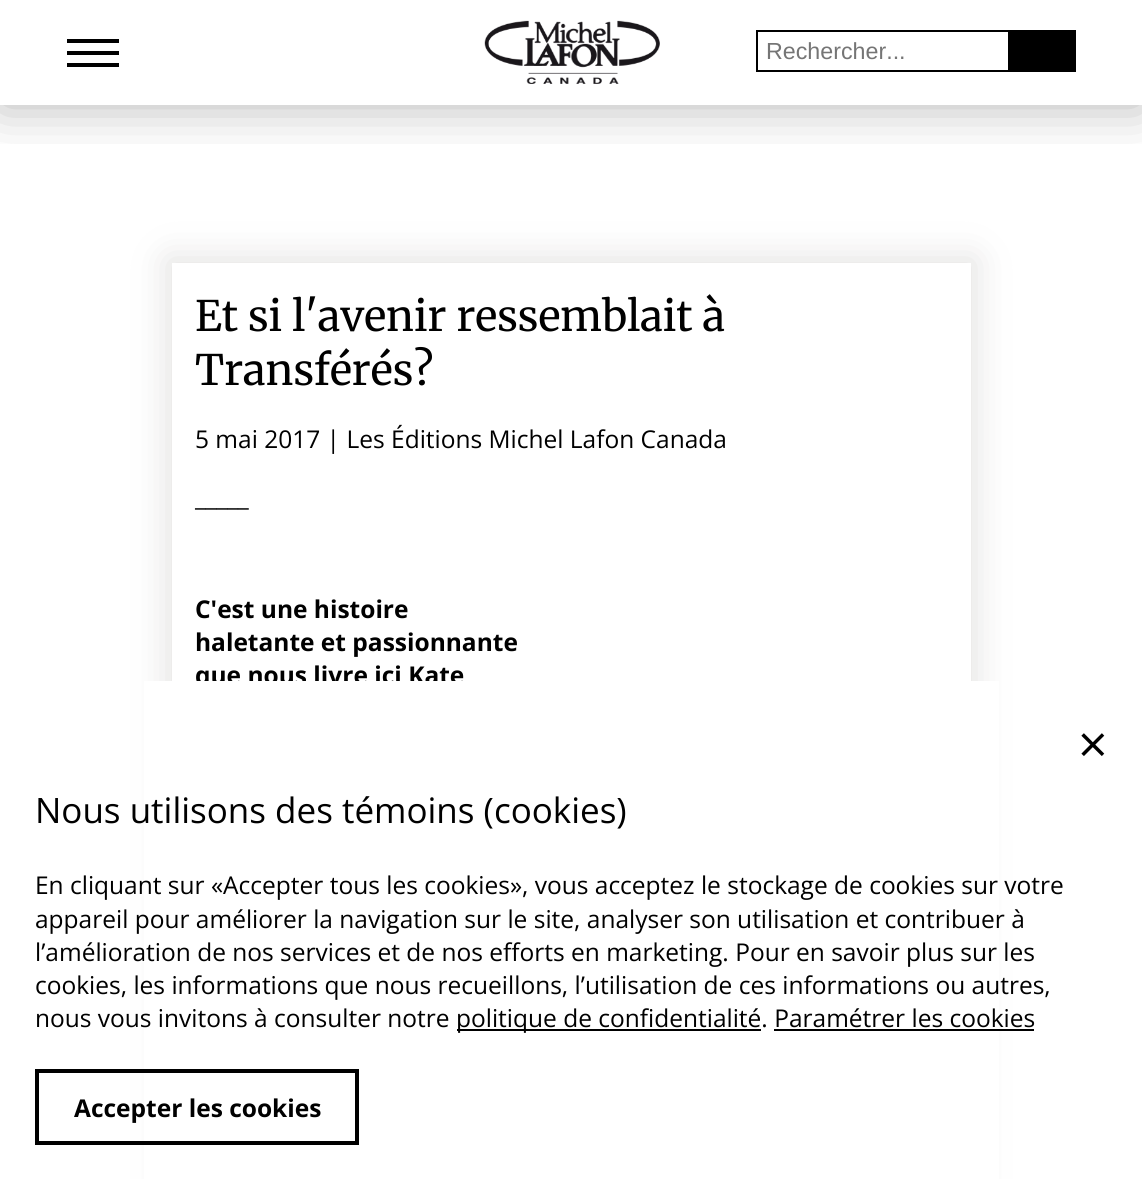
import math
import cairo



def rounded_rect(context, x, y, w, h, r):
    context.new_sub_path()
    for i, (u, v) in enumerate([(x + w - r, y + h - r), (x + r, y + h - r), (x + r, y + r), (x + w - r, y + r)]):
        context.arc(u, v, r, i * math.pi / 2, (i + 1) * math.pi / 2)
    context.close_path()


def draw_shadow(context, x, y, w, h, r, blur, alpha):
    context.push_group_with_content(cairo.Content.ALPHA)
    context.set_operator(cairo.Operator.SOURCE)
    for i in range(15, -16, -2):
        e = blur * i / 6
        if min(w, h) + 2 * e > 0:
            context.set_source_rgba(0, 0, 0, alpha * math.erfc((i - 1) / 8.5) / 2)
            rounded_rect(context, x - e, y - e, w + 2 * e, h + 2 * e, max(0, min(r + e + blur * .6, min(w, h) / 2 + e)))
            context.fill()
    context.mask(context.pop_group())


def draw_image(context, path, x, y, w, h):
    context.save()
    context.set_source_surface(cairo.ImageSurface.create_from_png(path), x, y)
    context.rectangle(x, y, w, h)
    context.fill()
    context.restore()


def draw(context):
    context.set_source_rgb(1, 1, 1)
    context.paint()
    context.save()
    context.rectangle(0, 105, 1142, 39)
    context.clip()
    context.set_source_rgb(0, 0, 0)
    draw_shadow(context, 0, 0, 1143, 105, 0, 26, 0.3)
    context.restore()
    context.set_source_rgb(0, 0, 0)
    context.rectangle(67, 39, 52, 4)
    context.fill()
    context.rectangle(67, 51, 52, 4)
    context.fill()
    context.rectangle(67, 63, 52, 4)
    context.fill()
    draw_image(context, "images/1.png", 484, 20, 176, 64)
    context.rectangle(757, 31, 252, 40)
    context.stroke()
    context.rectangle(1010, 30, 66, 42)
    context.fill()
    context.save()
    context.set_fill_rule(cairo.FillRule.EVEN_ODD)
    context.new_path()
    context.move_to(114, 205)
    context.line_to(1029, 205)
    context.line_to(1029, 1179)
    context.line_to(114, 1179)
    context.close_path()
    context.move_to(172, 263)
    context.line_to(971, 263)
    context.line_to(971, 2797)
    context.line_to(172, 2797)
    context.close_path()
    context.clip()
    context.set_source_rgb(226 / 255, 225 / 255, 224 / 255)
    draw_shadow(context, 168, 259, 807, 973, 0, 17.5, 1)
    context.restore()
    context.select_font_face("Liberation Sans")
    context.set_font_size(23.25)
    context.set_source_rgb(117 / 255, 117 / 255, 117 / 255)
    context.move_to(766, 59)
    context.show_text("Rechercher...")
    context.select_font_face("Merriweather")
    context.set_font_size(42)
    context.set_source_rgb(0, 0, 0)
    context.move_to(195, 331)
    context.show_text("Et si l'avenir ressemblait à")
    context.move_to(195, 385)
    context.show_text("Transférés?")
    context.select_font_face("Open Sans")
    context.set_font_size(24.5)
    context.move_to(195, 448)
    context.show_text("5 mai 2017 | Les Éditions Michel Lafon Canada")
    context.move_to(195, 506)
    context.show_text("_____")
    context.select_font_face("Open Sans", cairo.FontSlant.NORMAL, cairo.FontWeight.BOLD)
    context.move_to(195, 618)
    context.show_text("C'est une histoire")
    context.move_to(195, 651)
    context.show_text("haletante et passionnante")
    context.move_to(195, 684)
    context.show_text("que nous livre ici Kate")
    context.set_source_rgb(1, 1, 1)
    context.rectangle(144, 681, 855, 498)
    context.fill()
    context.select_font_face("Open Sans")
    context.set_font_size(52)
    context.set_source_rgb(0, 0, 0)
    context.move_to(1078, 763)
    context.show_text("×")
    context.set_font_size(35)
    context.move_to(35, 823)
    context.show_text("Nous utilisons des témoins (cookies)")
    context.set_font_size(24.5)
    context.move_to(35, 894)
    context.show_text("En cliquant sur «Accepter tous les cookies», vous acceptez le stockage de cookies sur votre")
    context.move_to(35, 928)
    context.show_text("appareil pour améliorer la navigation sur le site, analyser son utilisation et contribuer à")
    context.move_to(35, 961)
    context.show_text("l’amélioration de nos services et de nos efforts en marketing. Pour en savoir plus sur les")
    context.move_to(35, 994)
    context.show_text("cookies, les informations que nous recueillons, l’utilisation de ces informations ou autres,")
    context.move_to(35, 1027)
    context.show_text("nous vous invitons à consulter notre")
    context.rectangle(457, 1029, 304, 2)
    context.fill()
    context.move_to(456, 1027)
    context.show_text("politique de confidentialité. Paramétrer les cookies")
    context.rectangle(774, 1029, 260, 2)
    context.fill()
    context.rectangle(37, 1071, 320, 72)
    context.set_line_width(4)
    context.stroke()
    context.select_font_face("Open Sans", cairo.FontSlant.NORMAL, cairo.FontWeight.BOLD)
    context.move_to(74, 1117)
    context.show_text("Accepter les cookies")


surface = cairo.ImageSurface(cairo.Format.RGB24, 1142, 1179)
context = cairo.Context(surface)
options = cairo.FontOptions()
options.set_hint_metrics(cairo.HintMetrics.OFF)
options.set_hint_style(cairo.HintStyle.NONE)
context.set_font_options(options)
context.set_miter_limit(4)
draw(context)
surface.write_to_png("out.png")
